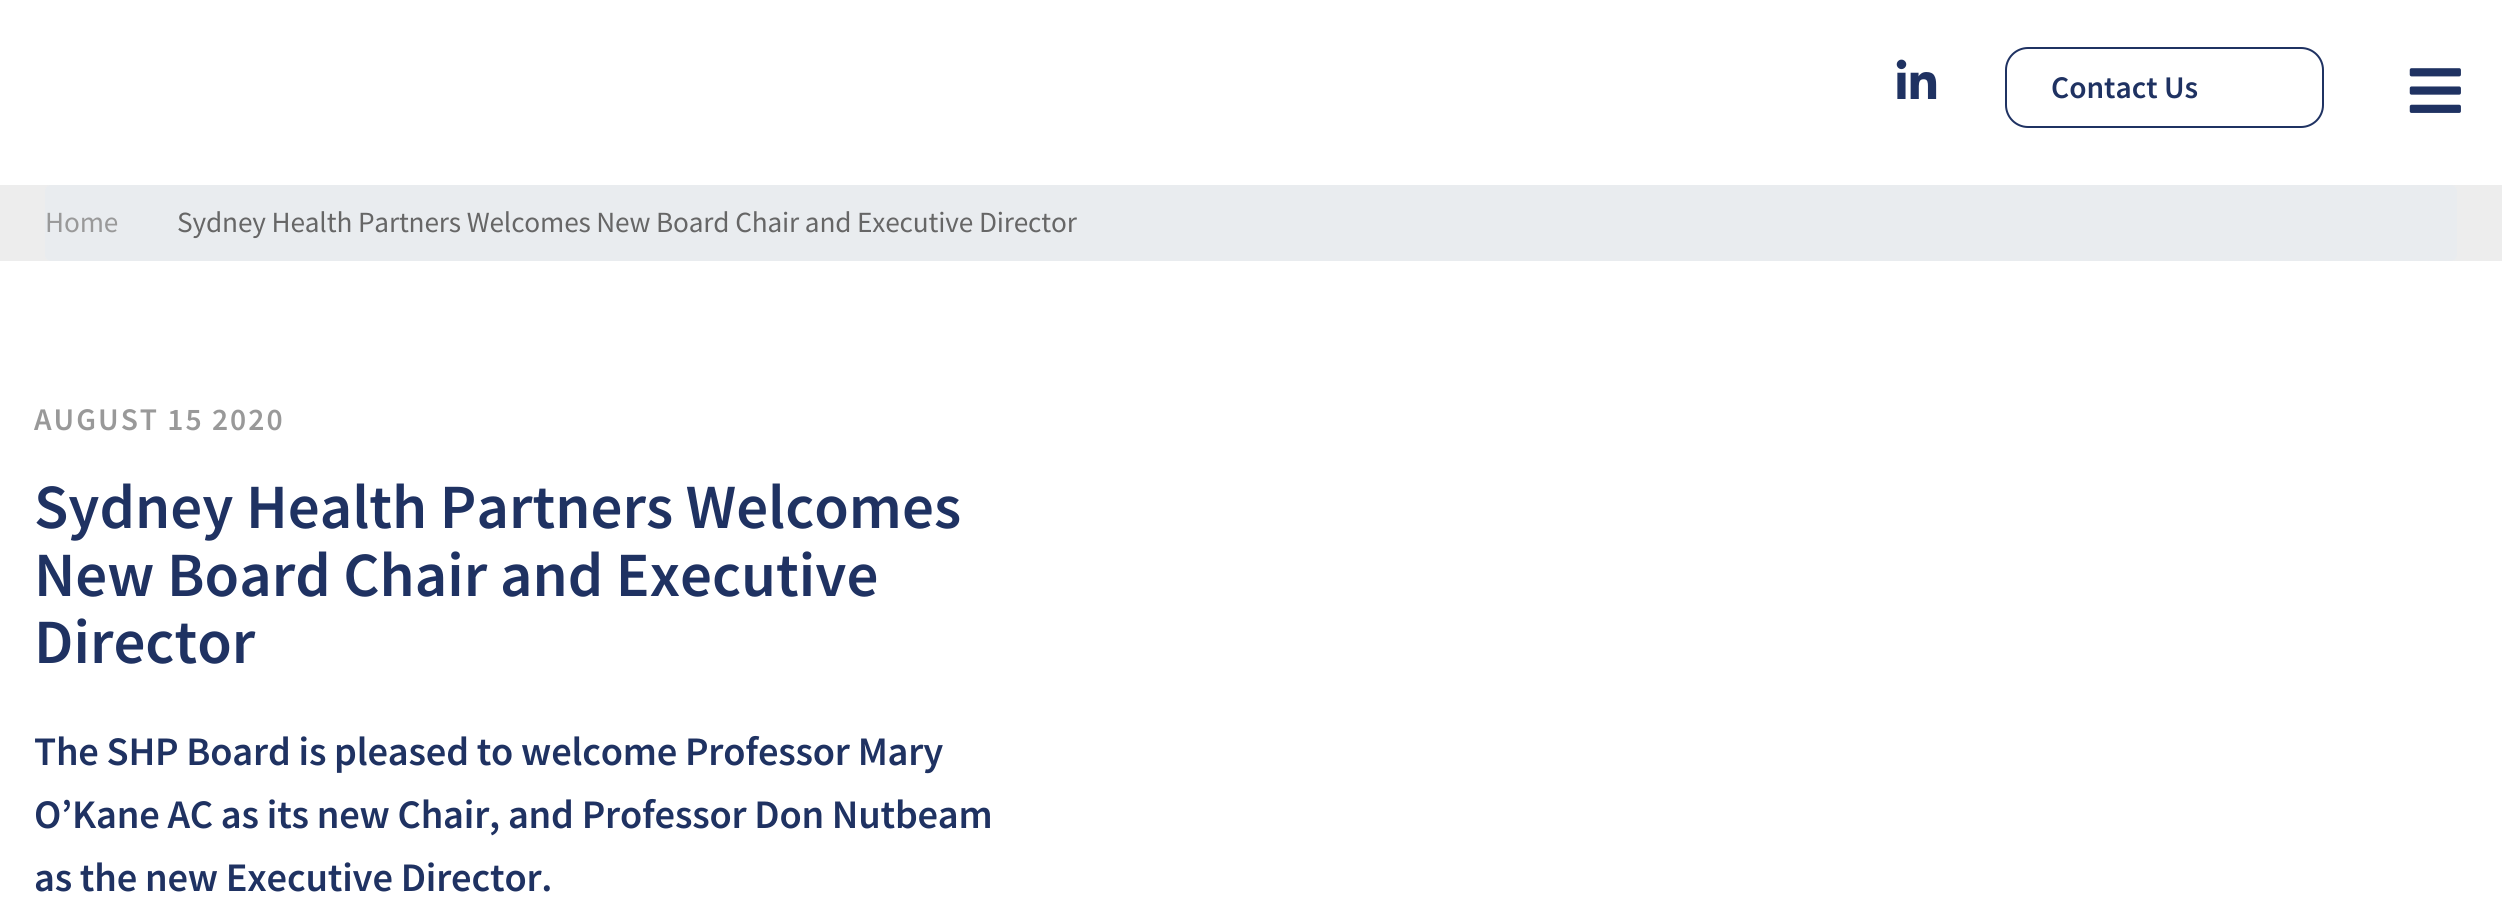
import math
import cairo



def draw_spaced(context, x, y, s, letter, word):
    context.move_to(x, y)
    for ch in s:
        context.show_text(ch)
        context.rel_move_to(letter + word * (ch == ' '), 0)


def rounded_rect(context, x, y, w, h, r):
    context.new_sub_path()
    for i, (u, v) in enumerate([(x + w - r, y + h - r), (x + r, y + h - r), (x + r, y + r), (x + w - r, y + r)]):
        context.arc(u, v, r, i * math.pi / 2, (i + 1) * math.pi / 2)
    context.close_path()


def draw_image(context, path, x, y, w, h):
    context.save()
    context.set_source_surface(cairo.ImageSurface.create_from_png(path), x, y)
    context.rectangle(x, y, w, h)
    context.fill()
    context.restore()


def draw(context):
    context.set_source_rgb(1, 1, 1)
    context.paint()
    draw_image(context, "images/1.png", 1896, 59, 41, 40)
    rounded_rect(context, 2006, 48, 317, 79, 22)
    context.set_source_rgb(31 / 255, 50 / 255, 98 / 255)
    context.stroke()
    draw_image(context, "images/2.png", 2409, 68, 52, 45)
    context.set_source_rgb(237 / 255, 237 / 255, 237 / 255)
    context.rectangle(0, 185, 2502, 76)
    context.fill()
    context.set_source_rgb(233 / 255, 236 / 255, 239 / 255)
    rounded_rect(context, 45, 185, 2412, 76, 6)
    context.fill()
    context.select_font_face("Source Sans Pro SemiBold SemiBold")
    context.set_font_size(31.5)
    context.set_source_rgb(31 / 255, 50 / 255, 98 / 255)
    context.move_to(2051, 98)
    context.show_text("Contact Us")
    context.select_font_face("Source Sans Pro")
    context.set_font_size(29.25)
    context.set_source_rgb(153 / 255, 153 / 255, 153 / 255)
    draw_spaced(context, 45, 232, "Home", -0.15, 0)
    context.set_source_rgb(102 / 255, 102 / 255, 102 / 255)
    draw_spaced(context, 177, 232, "Sydney Health Partners Welcomes New Board Chair and Executive Director", -0.15, 0)
    context.select_font_face("Source Sans Pro SemiBold SemiBold")
    context.set_font_size(31.5)
    context.set_source_rgb(153 / 255, 153 / 255, 153 / 255)
    draw_spaced(context, 34, 430, "AUGUST 15 2020", 2, 0)
    context.set_font_size(63)
    context.set_source_rgb(31 / 255, 50 / 255, 98 / 255)
    context.move_to(34, 528)
    context.show_text("Sydney Health Partners Welcomes")
    context.move_to(34, 596)
    context.show_text("New Board Chair and Executive")
    context.move_to(34, 663)
    context.show_text("Director")
    context.set_font_size(40.5)
    draw_spaced(context, 34, 765, "The SHP Board is pleased to welcome Professor Mary", -0.2, 0)
    draw_spaced(context, 34, 828, "O’Kane AC as its new Chair, and Professor Don Nutbeam", -0.2, 0)
    draw_spaced(context, 34, 891, "as the new Executive Director.", -0.2, 0)


surface = cairo.ImageSurface(cairo.Format.RGB24, 2502, 923)
context = cairo.Context(surface)
options = cairo.FontOptions()
options.set_hint_metrics(cairo.HintMetrics.OFF)
options.set_hint_style(cairo.HintStyle.NONE)
context.set_font_options(options)
context.set_miter_limit(4)
draw(context)
surface.write_to_png("out.png")
